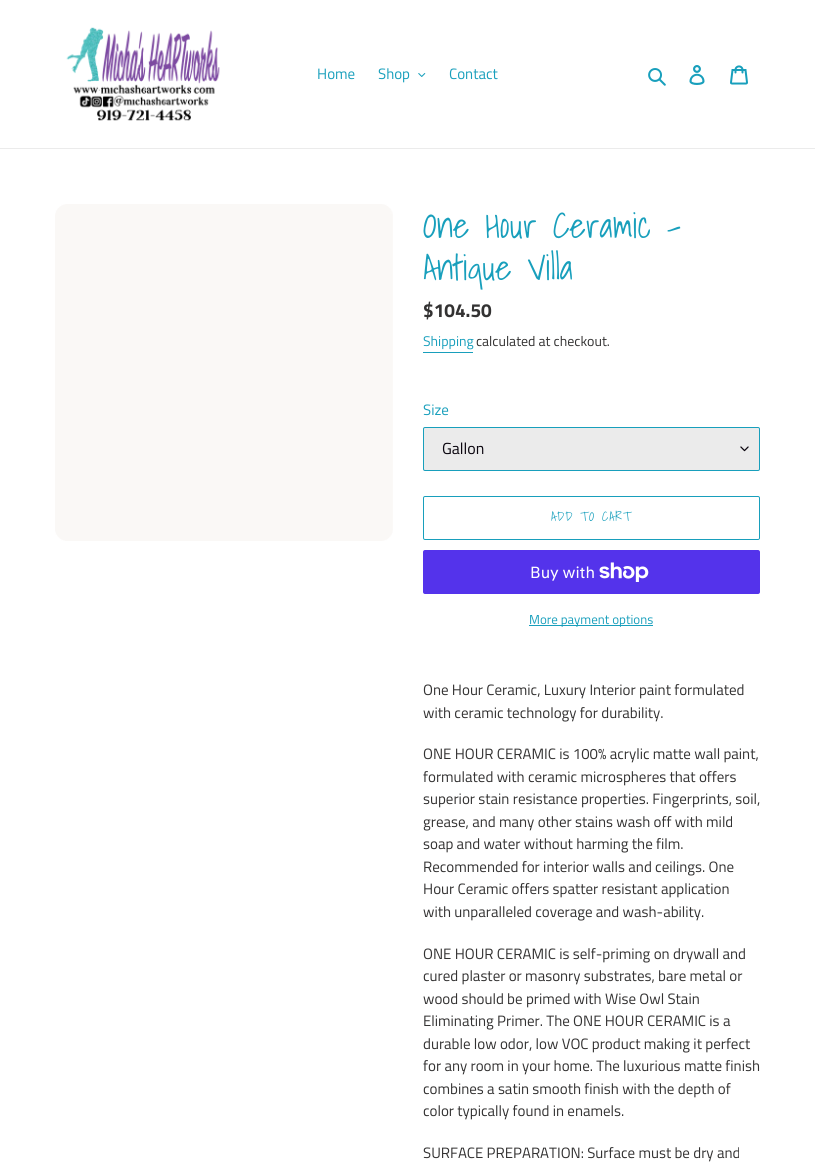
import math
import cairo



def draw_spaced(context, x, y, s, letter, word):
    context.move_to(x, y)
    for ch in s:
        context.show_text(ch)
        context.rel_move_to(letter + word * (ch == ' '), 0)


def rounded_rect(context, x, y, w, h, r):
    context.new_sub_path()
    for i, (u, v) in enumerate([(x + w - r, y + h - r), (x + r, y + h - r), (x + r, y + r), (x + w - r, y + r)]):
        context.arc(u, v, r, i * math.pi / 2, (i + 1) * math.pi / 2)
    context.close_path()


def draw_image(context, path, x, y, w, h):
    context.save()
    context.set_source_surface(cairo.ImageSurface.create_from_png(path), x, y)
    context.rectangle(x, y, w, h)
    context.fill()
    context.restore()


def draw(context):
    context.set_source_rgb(1, 1, 1)
    context.paint()
    context.set_source_rgb(235 / 255, 235 / 255, 235 / 255)
    context.rectangle(0, 148, 815, 1)
    context.fill()
    draw_image(context, "images/1.png", 66, 27, 154, 94)
    draw_image(context, "images/2.png", 418, 73, 8, 4)
    draw_image(context, "images/3.png", 648, 68, 18, 18)
    draw_image(context, "images/4.png", 689, 65, 16, 20)
    draw_image(context, "images/5.png", 730, 65, 18, 20)
    draw_image(context, "images/6.png", 55, 204, 338, 337)
    context.set_source_rgb(24 / 255, 159 / 255, 188 / 255)
    context.rectangle(423, 352, 50, 1)
    context.fill()
    context.set_source_rgb(235 / 255, 235 / 255, 235 / 255)
    rounded_rect(context, 423, 427, 337, 44, 2)
    context.fill()
    draw_image(context, "images/7.png", 740, 446, 9, 6)
    rounded_rect(context, 423.5, 427.5, 336, 43, 1.5)
    context.set_source_rgb(24 / 255, 159 / 255, 188 / 255)
    context.set_line_width(1)
    context.stroke()
    rounded_rect(context, 423.5, 496.5, 336, 43, 1.5)
    context.stroke()
    context.set_source_rgb(84 / 255, 51 / 255, 235 / 255)
    rounded_rect(context, 423, 550, 337, 44, 2)
    context.fill()
    draw_image(context, "images/8.png", 599, 562, 50, 20)
    context.set_source_rgb(24 / 255, 159 / 255, 188 / 255)
    context.rectangle(529, 625, 124, 1)
    context.fill()
    context.select_font_face("Titillium Web")
    context.set_font_size(15)
    context.move_to(317, 79)
    context.show_text("Home")
    context.move_to(378, 79)
    context.show_text("Shop")
    context.move_to(449, 79)
    context.show_text("Contact")
    context.select_font_face("Shadows Into Light")
    context.set_font_size(35)
    context.move_to(423, 238)
    context.show_text("One Hour Ceramic -")
    context.move_to(423, 280)
    context.show_text("Antique Villa")
    context.select_font_face("Titillium Web", cairo.FontSlant.NORMAL, cairo.FontWeight.BOLD)
    context.set_font_size(19)
    context.set_source_rgb(51 / 255, 50 / 255, 50 / 255)
    context.move_to(423, 317)
    context.show_text("$104.50")
    context.select_font_face("Titillium Web")
    context.set_font_size(14)
    context.set_source_rgb(24 / 255, 159 / 255, 188 / 255)
    context.move_to(423, 346)
    context.show_text("Shipping")
    context.set_source_rgb(51 / 255, 50 / 255, 50 / 255)
    context.move_to(476, 346)
    context.show_text("calculated at checkout.")
    context.set_font_size(15)
    context.set_source_rgb(24 / 255, 159 / 255, 188 / 255)
    context.move_to(423, 415)
    context.show_text("Size")
    context.set_font_size(16)
    context.set_source_rgb(10 / 255, 5 / 255, 14 / 255)
    context.move_to(442, 454)
    context.show_text("Gallon")
    context.select_font_face("Shadows Into Light")
    context.set_font_size(13)
    context.set_source_rgb(24 / 255, 159 / 255, 188 / 255)
    draw_spaced(context, 551, 521, "ADD TO CART", 1, 0)
    context.select_font_face("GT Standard")
    context.set_font_size(16)
    context.set_source_rgb(1, 1, 1)
    context.move_to(530, 578)
    context.show_text("Buy with")
    context.select_font_face("Titillium Web")
    context.set_font_size(13)
    context.set_source_rgb(24 / 255, 159 / 255, 188 / 255)
    context.move_to(529, 624)
    context.show_text("More payment options")
    context.set_font_size(15)
    context.set_source_rgb(51 / 255, 50 / 255, 50 / 255)
    context.move_to(423, 695)
    context.show_text("One Hour Ceramic, Luxury Interior paint formulated")
    context.move_to(423, 718)
    context.show_text("with ceramic technology for durability.")
    context.move_to(423, 759)
    context.show_text("ONE HOUR CERAMIC is 100% acrylic matte wall paint,")
    context.move_to(423, 782)
    context.show_text("formulated with ceramic microspheres that offers")
    context.move_to(423, 804)
    context.show_text("superior stain resistance properties. Fingerprints, soil,")
    context.move_to(423, 827)
    context.show_text("grease, and many other stains wash off with mild")
    context.move_to(423, 849)
    context.show_text("soap and water without harming the film.")
    context.move_to(423, 872)
    context.show_text("Recommended for interior walls and ceilings. One")
    context.move_to(423, 894)
    context.show_text("Hour Ceramic offers spatter resistant application")
    context.move_to(423, 917)
    context.show_text("with unparalleled coverage and wash-ability.")
    context.move_to(423, 959)
    context.show_text("ONE HOUR CERAMIC is self-priming on drywall and")
    context.move_to(423, 981)
    context.show_text("cured plaster or masonry substrates, bare metal or")
    context.move_to(423, 1004)
    context.show_text("wood should be primed with Wise Owl Stain")
    context.move_to(423, 1026)
    context.show_text("Eliminating Primer. The ONE HOUR CERAMIC is a")
    context.move_to(423, 1049)
    context.show_text("durable low odor, low VOC product making it perfect")
    context.move_to(423, 1071)
    context.show_text("for any room in your home. The luxurious matte finish")
    context.move_to(423, 1094)
    context.show_text("combines a satin smooth finish with the depth of")
    context.move_to(423, 1116)
    context.show_text("color typically found in enamels.")
    context.move_to(423, 1158)
    context.show_text("SURFACE PREPARATION: Surface must be dry and")


surface = cairo.ImageSurface(cairo.Format.RGB24, 815, 1162)
context = cairo.Context(surface)
options = cairo.FontOptions()
options.set_hint_metrics(cairo.HintMetrics.OFF)
options.set_hint_style(cairo.HintStyle.NONE)
context.set_font_options(options)
context.set_miter_limit(4)
draw(context)
surface.write_to_png("out.png")
